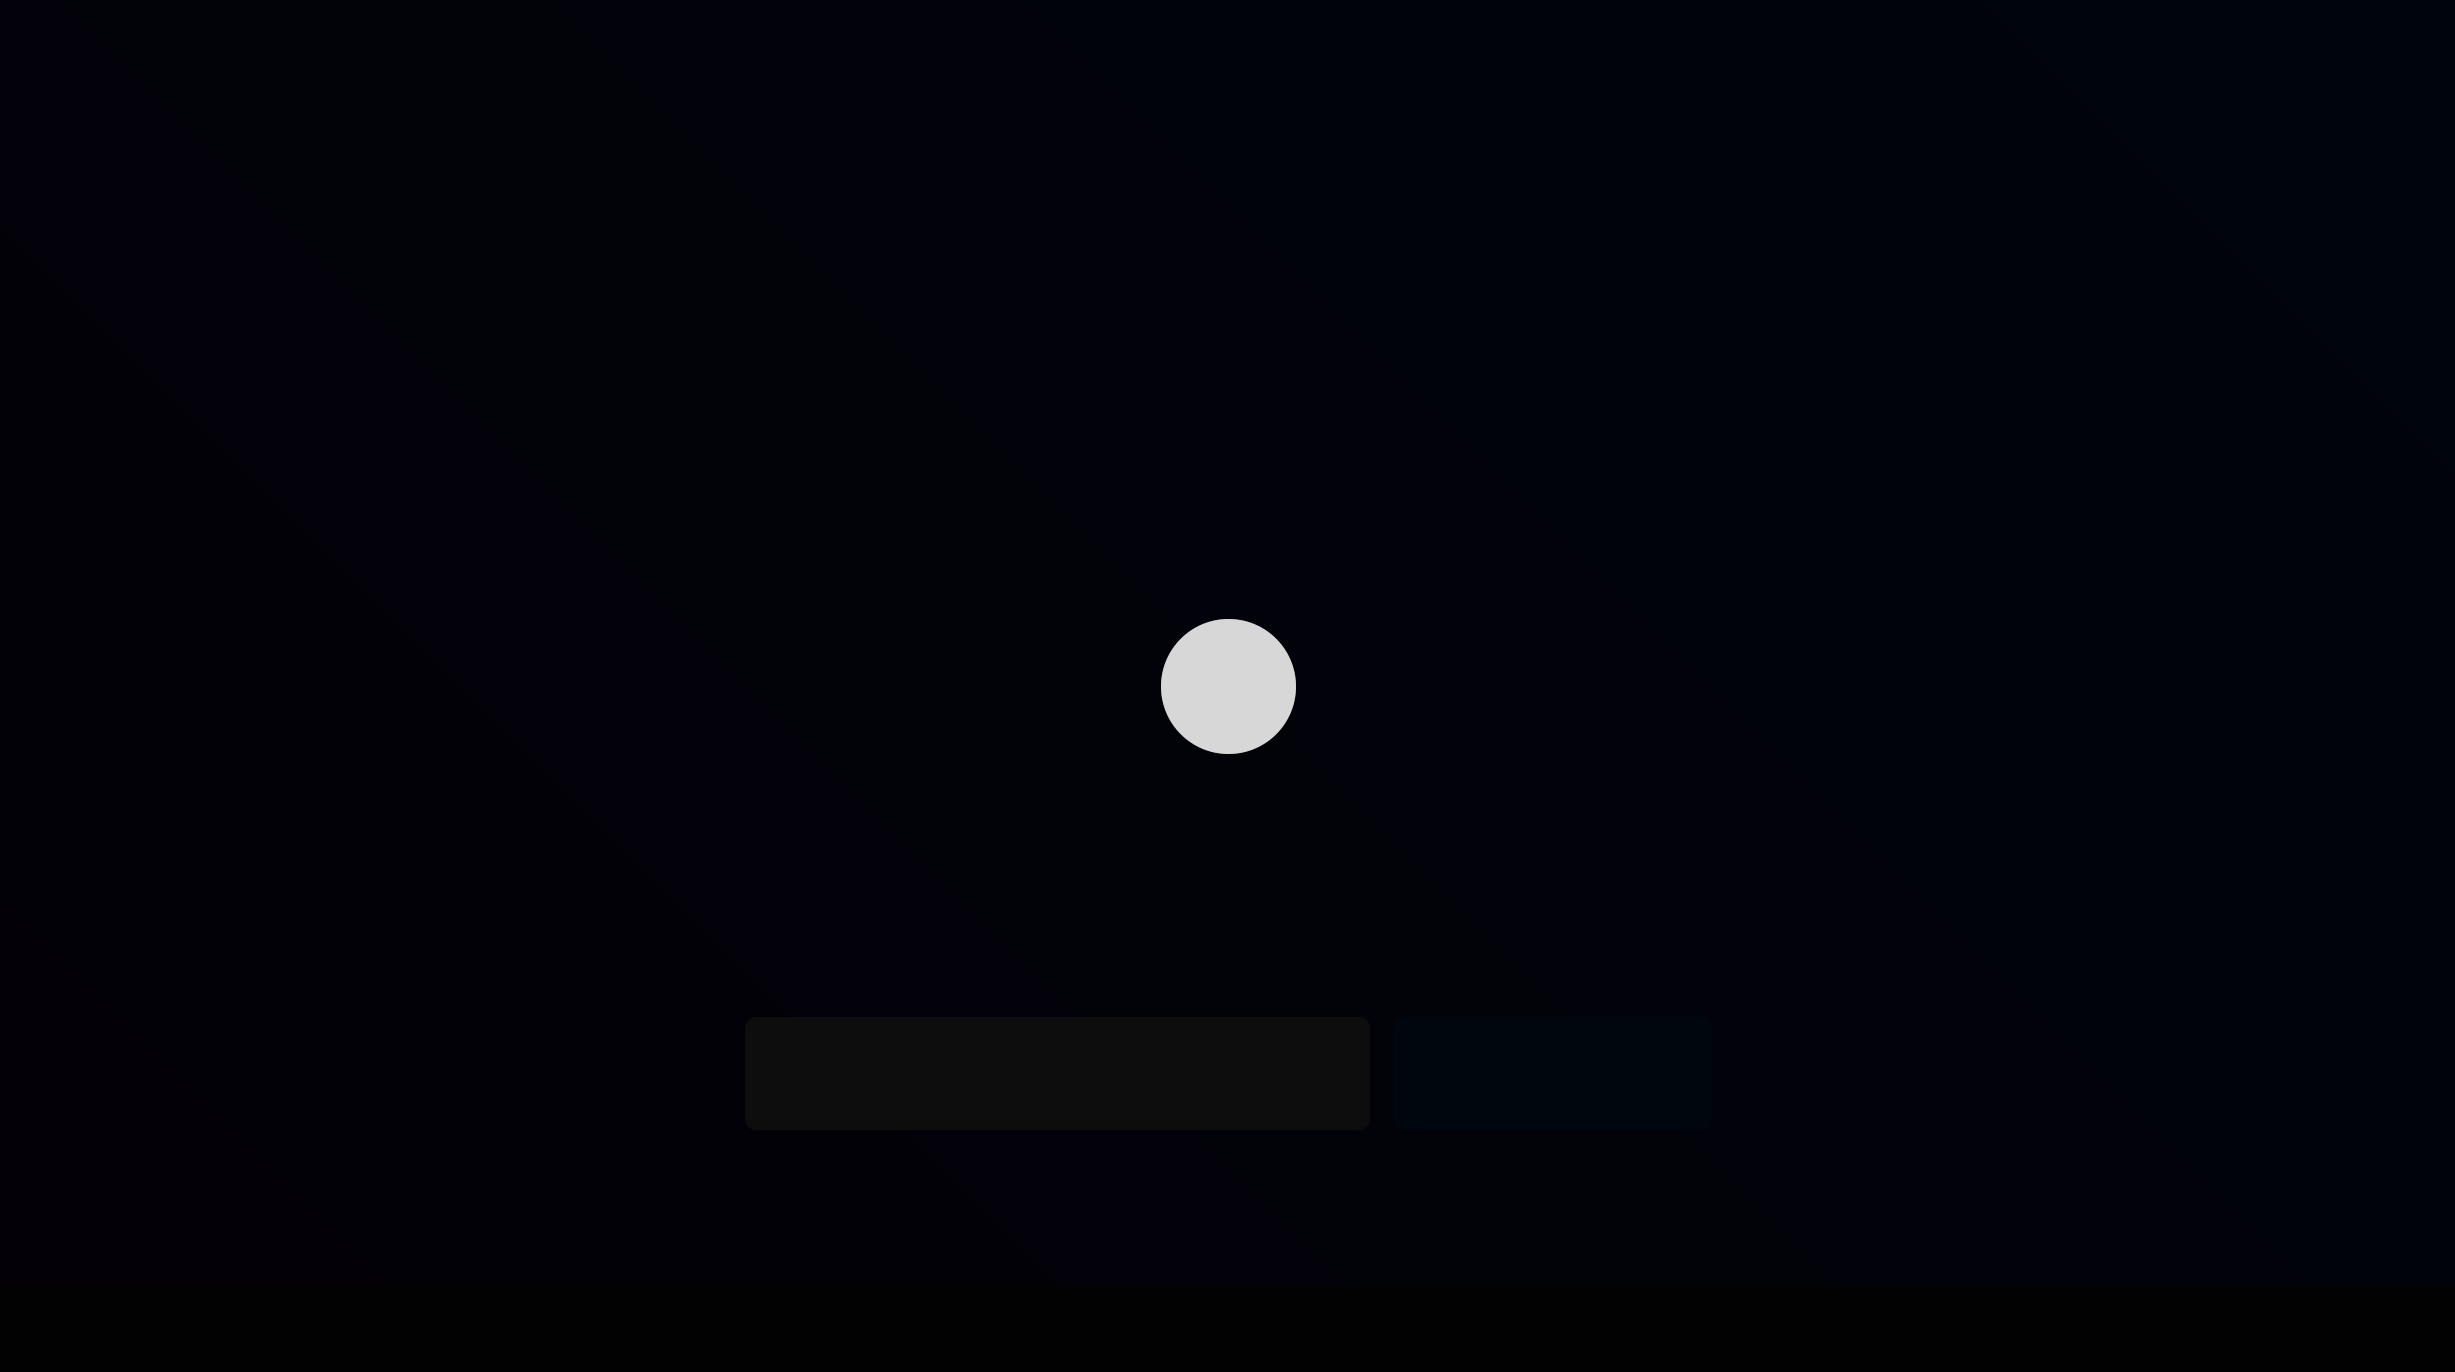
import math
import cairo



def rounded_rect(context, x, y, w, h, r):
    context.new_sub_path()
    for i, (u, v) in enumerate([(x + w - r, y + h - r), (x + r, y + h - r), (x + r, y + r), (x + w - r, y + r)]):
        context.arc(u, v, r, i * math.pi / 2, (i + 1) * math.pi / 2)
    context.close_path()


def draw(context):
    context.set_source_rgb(1, 1, 1)
    context.paint()
    gradient = cairo.LinearGradient(2186, -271, 271, 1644)
    gradient.add_color_stop_rgba(0, 0, 4 / 255, 12 / 255, 1)
    gradient.add_color_stop_rgba(1, 4 / 255, 0, 7 / 255, 1)
    context.set_source(gradient)
    context.rectangle(0, 0, 2455, 1287)
    context.fill()
    context.set_source_rgba(1, 1, 1, 0.6)
    context.arc(1228.5, 686.5, 67.5, 0, 2 * math.pi)
    context.fill()
    context.arc(1228.5, 686.5, 67.5, 0, 2 * math.pi)
    context.fill()
    context.set_source_rgb(13 / 255, 13 / 255, 13 / 255)
    rounded_rect(context, 745, 1017, 625, 113, 11)
    context.fill()
    context.set_source_rgb(0, 6 / 255, 13 / 255)
    rounded_rect(context, 1393, 1017, 319, 113, 11)
    context.fill()
    context.set_source_rgb(2 / 255, 2 / 255, 2 / 255)
    context.rectangle(0, 1287, 2455, 85)
    context.fill()


surface = cairo.ImageSurface(cairo.Format.RGB24, 2455, 1372)
context = cairo.Context(surface)
options = cairo.FontOptions()
options.set_hint_metrics(cairo.HintMetrics.OFF)
options.set_hint_style(cairo.HintStyle.NONE)
context.set_font_options(options)
context.set_miter_limit(4)
draw(context)
surface.write_to_png("out.png")
